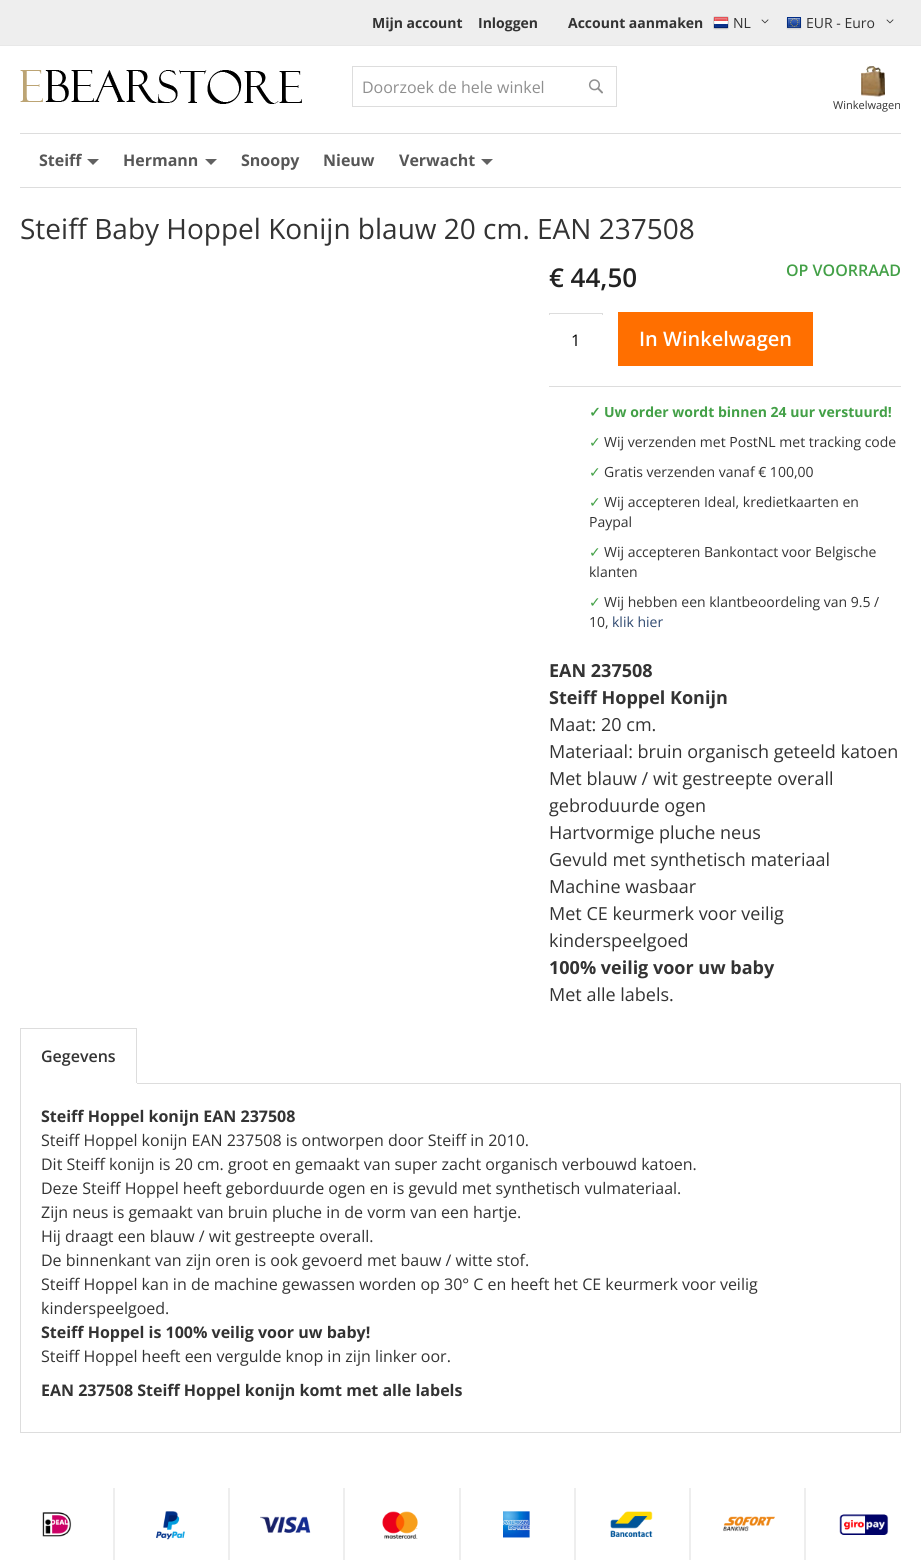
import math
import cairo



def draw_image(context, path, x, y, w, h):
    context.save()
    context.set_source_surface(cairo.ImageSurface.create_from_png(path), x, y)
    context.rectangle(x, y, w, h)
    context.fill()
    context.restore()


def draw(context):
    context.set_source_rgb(1, 1, 1)
    context.paint()
    context.set_source_rgb(238 / 255, 238 / 255, 238 / 255)
    context.rectangle(0, 0, 921, 45)
    context.fill()
    context.set_source_rgb(232 / 255, 232 / 255, 232 / 255)
    context.rectangle(0, 45, 921, 1)
    context.fill()
    draw_image(context, "images/1.png", 713, 16, 16, 14)
    draw_image(context, "images/2.png", 761, 19, 8, 5)
    draw_image(context, "images/3.png", 786, 17, 16, 13)
    draw_image(context, "images/2.png", 886, 19, 8, 5)
    draw_image(context, "images/4.png", 20, 70, 282, 34)
    context.rectangle(352.5, 66.5, 264, 40)
    context.set_source_rgb(221 / 255, 221 / 255, 221 / 255)
    context.set_line_width(1)
    context.stroke()
    draw_image(context, "images/5.png", 588, 79, 15, 15)
    draw_image(context, "images/6.png", 861, 66, 24, 31)
    context.rectangle(20, 133, 881, 1)
    context.fill()
    context.rectangle(20, 187, 881, 1)
    context.fill()
    context.set_source_rgb(97 / 255, 97 / 255, 97 / 255)
    context.new_path()
    context.move_to(87, 159)
    context.line_to(99, 159)
    context.line_to(93, 165)
    context.close_path()
    context.fill()
    context.new_path()
    context.move_to(205, 159)
    context.line_to(217, 159)
    context.line_to(211, 165)
    context.close_path()
    context.fill()
    context.new_path()
    context.move_to(481, 159)
    context.line_to(493, 159)
    context.line_to(487, 165)
    context.close_path()
    context.fill()
    context.set_source_rgb(221 / 255, 221 / 255, 221 / 255)
    context.rectangle(549, 386, 352, 1)
    context.fill()
    context.rectangle(549, 313, 54, 2)
    context.fill()
    context.set_source_rgb(1, 1, 1)
    context.rectangle(550, 314, 52, 1)
    context.fill()
    context.set_source_rgb(1, 111 / 255, 0)
    context.rectangle(618, 312, 195, 54)
    context.fill()
    context.set_source_rgb(221 / 255, 221 / 255, 221 / 255)
    context.rectangle(20, 1028, 117, 1)
    context.fill()
    context.rectangle(20.5, 1083.5, 880, 349)
    context.stroke()
    context.rectangle(136, 1028, 1, 56)
    context.fill()
    context.set_source_rgb(1, 1, 1)
    context.rectangle(20, 1083, 117, 1)
    context.fill()
    context.set_source_rgb(221 / 255, 221 / 255, 221 / 255)
    context.rectangle(20, 1028, 1, 56)
    context.fill()
    context.set_source_rgb(238 / 255, 238 / 255, 238 / 255)
    context.rectangle(113, 1488, 2, 72)
    context.fill()
    draw_image(context, "images/7.png", 42, 1512, 30, 25)
    context.rectangle(228, 1488, 2, 72)
    context.fill()
    draw_image(context, "images/8.png", 156, 1511, 29, 29)
    context.rectangle(343, 1488, 2, 72)
    context.fill()
    draw_image(context, "images/9.png", 260, 1516, 51, 17)
    context.rectangle(459, 1488, 2, 72)
    context.fill()
    draw_image(context, "images/10.png", 382, 1511, 36, 28)
    context.rectangle(574, 1488, 2, 72)
    context.fill()
    draw_image(context, "images/11.png", 503, 1511, 27, 27)
    context.rectangle(689, 1488, 2, 72)
    context.fill()
    draw_image(context, "images/12.png", 610, 1511, 43, 26)
    context.rectangle(804, 1488, 2, 72)
    context.fill()
    draw_image(context, "images/13.png", 723, 1516, 52, 16)
    draw_image(context, "images/14.png", 839, 1514, 50, 21)
    context.select_font_face("Open Sans", cairo.FontSlant.NORMAL, cairo.FontWeight.BOLD)
    context.set_font_size(14)
    context.set_source_rgb(51 / 255, 51 / 255, 51 / 255)
    context.move_to(372, 28)
    context.show_text("Mijn account")
    context.move_to(478, 28)
    context.show_text("Inloggen")
    context.move_to(568, 28)
    context.show_text("Account aanmaken")
    context.select_font_face("Open Sans")
    context.move_to(733, 28)
    context.show_text("NL")
    context.move_to(806, 28)
    context.show_text("EUR - Euro")
    context.set_font_size(16)
    context.set_source_rgb(143 / 255, 143 / 255, 143 / 255)
    context.move_to(362, 93)
    context.show_text("Doorzoek de hele winkel")
    context.set_font_size(11)
    context.set_source_rgb(51 / 255, 51 / 255, 51 / 255)
    context.move_to(833, 109)
    context.show_text("Winkelwagen")
    context.select_font_face("Open Sans", cairo.FontSlant.NORMAL, cairo.FontWeight.BOLD)
    context.set_font_size(16)
    context.set_source_rgb(87 / 255, 87 / 255, 87 / 255)
    context.move_to(39, 166)
    context.show_text("Steiff")
    context.move_to(123, 166)
    context.show_text("Hermann")
    context.move_to(241, 166)
    context.show_text("Snoopy")
    context.move_to(323, 166)
    context.show_text("Nieuw")
    context.move_to(399, 166)
    context.show_text("Verwacht")
    context.select_font_face("Open Sans")
    context.set_font_size(28)
    context.set_source_rgb(51 / 255, 51 / 255, 51 / 255)
    context.move_to(20, 239)
    context.show_text("Steiff Baby Hoppel Konijn blauw 20 cm. EAN 237508")
    context.select_font_face("Open Sans SemiBold")
    context.set_font_size(26)
    context.set_source_rgb(34 / 255, 34 / 255, 34 / 255)
    context.move_to(549, 287)
    context.show_text("€ 44,50")
    context.set_font_size(16)
    context.set_source_rgb(67 / 255, 160 / 255, 71 / 255)
    context.move_to(786, 276)
    context.show_text("OP VOORRAAD")
    context.select_font_face("Open Sans")
    context.set_source_rgb(0, 0, 0)
    context.move_to(571, 346)
    context.show_text("1")
    context.select_font_face("Open Sans SemiBold")
    context.set_font_size(20)
    context.set_source_rgb(1, 1, 1)
    context.move_to(639, 346)
    context.show_text("In Winkelwagen")
    context.select_font_face("DejaVu Sans", cairo.FontSlant.NORMAL, cairo.FontWeight.BOLD)
    context.set_font_size(14)
    context.set_source_rgb(67 / 255, 160 / 255, 71 / 255)
    context.move_to(589, 417)
    context.show_text("✓")
    context.select_font_face("Open Sans", cairo.FontSlant.NORMAL, cairo.FontWeight.BOLD)
    context.move_to(604, 417)
    context.show_text("Uw order wordt binnen 24 uur verstuurd!")
    context.select_font_face("DejaVu Sans")
    context.move_to(589, 447)
    context.show_text("✓")
    context.select_font_face("Open Sans")
    context.set_source_rgb(51 / 255, 51 / 255, 51 / 255)
    context.move_to(604, 447)
    context.show_text("Wij verzenden met PostNL met tracking code")
    context.select_font_face("DejaVu Sans")
    context.set_source_rgb(67 / 255, 160 / 255, 71 / 255)
    context.move_to(589, 477)
    context.show_text("✓")
    context.select_font_face("Open Sans")
    context.set_source_rgb(51 / 255, 51 / 255, 51 / 255)
    context.move_to(604, 477)
    context.show_text("Gratis verzenden vanaf € 100,00")
    context.select_font_face("DejaVu Sans")
    context.set_source_rgb(67 / 255, 160 / 255, 71 / 255)
    context.move_to(589, 507)
    context.show_text("✓")
    context.select_font_face("Open Sans")
    context.set_source_rgb(51 / 255, 51 / 255, 51 / 255)
    context.move_to(604, 507)
    context.show_text("Wij accepteren Ideal, kredietkaarten en")
    context.move_to(589, 527)
    context.show_text("Paypal")
    context.select_font_face("DejaVu Sans")
    context.set_source_rgb(67 / 255, 160 / 255, 71 / 255)
    context.move_to(589, 557)
    context.show_text("✓")
    context.select_font_face("Open Sans")
    context.set_source_rgb(51 / 255, 51 / 255, 51 / 255)
    context.move_to(604, 557)
    context.show_text("Wij accepteren Bankontact voor Belgische")
    context.move_to(589, 577)
    context.show_text("klanten")
    context.select_font_face("DejaVu Sans")
    context.set_source_rgb(67 / 255, 160 / 255, 71 / 255)
    context.move_to(589, 607)
    context.show_text("✓")
    context.select_font_face("Open Sans")
    context.set_source_rgb(51 / 255, 51 / 255, 51 / 255)
    context.move_to(604, 607)
    context.show_text("Wij hebben een klantbeoordeling van 9.5 /")
    context.move_to(589, 627)
    context.show_text("10,")
    context.set_source_rgb(46 / 255, 72 / 255, 111 / 255)
    context.move_to(612, 627)
    context.show_text("klik hier")
    context.select_font_face("Open Sans", cairo.FontSlant.NORMAL, cairo.FontWeight.BOLD)
    context.set_font_size(18)
    context.set_source_rgb(51 / 255, 51 / 255, 51 / 255)
    context.move_to(549, 677)
    context.show_text("EAN 237508")
    context.move_to(549, 704)
    context.show_text("Steiff Hoppel Konijn")
    context.select_font_face("Open Sans")
    context.move_to(549, 731)
    context.show_text("Maat: 20 cm.")
    context.move_to(549, 758)
    context.show_text("Materiaal: bruin organisch geteeld katoen")
    context.move_to(549, 785)
    context.show_text("Met blauw / wit gestreepte overall")
    context.move_to(549, 812)
    context.show_text("gebroduurde ogen")
    context.move_to(549, 839)
    context.show_text("Hartvormige pluche neus")
    context.move_to(549, 866)
    context.show_text("Gevuld met synthetisch materiaal")
    context.move_to(549, 893)
    context.show_text("Machine wasbaar")
    context.move_to(549, 920)
    context.show_text("Met CE keurmerk voor veilig")
    context.move_to(549, 947)
    context.show_text("kinderspeelgoed")
    context.select_font_face("Open Sans", cairo.FontSlant.NORMAL, cairo.FontWeight.BOLD)
    context.move_to(549, 974)
    context.show_text("100% veilig voor uw baby")
    context.select_font_face("Open Sans")
    context.move_to(549, 1001)
    context.show_text("Met alle labels.")
    context.select_font_face("Open Sans SemiBold")
    context.set_font_size(16)
    context.move_to(41, 1062)
    context.show_text("Gegevens")
    context.select_font_face("Open Sans", cairo.FontSlant.NORMAL, cairo.FontWeight.BOLD)
    context.move_to(41, 1122)
    context.show_text("Steiff Hoppel konijn EAN 237508")
    context.select_font_face("Open Sans")
    context.move_to(41, 1146)
    context.show_text("Steiff Hoppel konijn EAN 237508 is ontworpen door Steiff in 2010.")
    context.move_to(41, 1170)
    context.show_text("Dit Steiff konijn is 20 cm. groot en gemaakt van super zacht organisch verbouwd katoen.")
    context.move_to(41, 1194)
    context.show_text("Deze Steiff Hoppel heeft geborduurde ogen en is gevuld met synthetisch vulmateriaal.")
    context.move_to(41, 1218)
    context.show_text("Zijn neus is gemaakt van bruin pluche in de vorm van een hartje.")
    context.move_to(41, 1242)
    context.show_text("Hij draagt een blauw / wit gestreepte overall.")
    context.move_to(41, 1266)
    context.show_text("De binnenkant van zijn oren is ook gevoerd met bauw / witte stof.")
    context.move_to(41, 1290)
    context.show_text("Steiff Hoppel kan in de machine gewassen worden op 30° C en heeft het CE keurmerk voor veilig")
    context.move_to(41, 1314)
    context.show_text("kinderspeelgoed.")
    context.select_font_face("Open Sans", cairo.FontSlant.NORMAL, cairo.FontWeight.BOLD)
    context.move_to(41, 1338)
    context.show_text("Steiff Hoppel is 100% veilig voor uw baby!")
    context.select_font_face("Open Sans")
    context.move_to(41, 1362)
    context.show_text("Steiff Hoppel heeft een vergulde knop in zijn linker oor.")
    context.select_font_face("Open Sans", cairo.FontSlant.NORMAL, cairo.FontWeight.BOLD)
    context.move_to(41, 1396)
    context.show_text("EAN 237508 Steiff Hoppel konijn komt met alle labels")


surface = cairo.ImageSurface(cairo.Format.RGB24, 921, 1562)
context = cairo.Context(surface)
options = cairo.FontOptions()
options.set_hint_metrics(cairo.HintMetrics.OFF)
options.set_hint_style(cairo.HintStyle.NONE)
context.set_font_options(options)
context.set_miter_limit(4)
draw(context)
surface.write_to_png("out.png")
